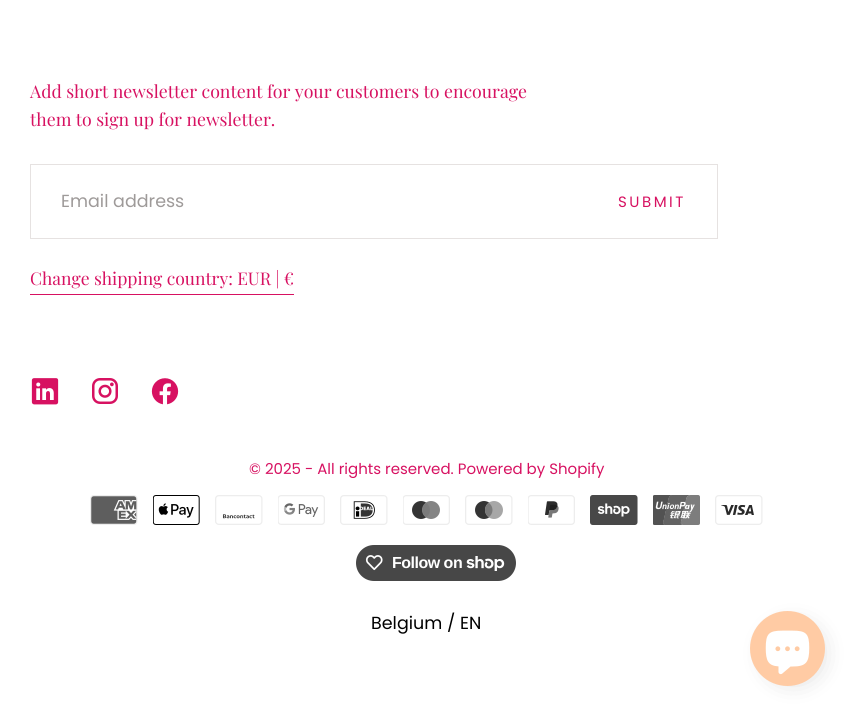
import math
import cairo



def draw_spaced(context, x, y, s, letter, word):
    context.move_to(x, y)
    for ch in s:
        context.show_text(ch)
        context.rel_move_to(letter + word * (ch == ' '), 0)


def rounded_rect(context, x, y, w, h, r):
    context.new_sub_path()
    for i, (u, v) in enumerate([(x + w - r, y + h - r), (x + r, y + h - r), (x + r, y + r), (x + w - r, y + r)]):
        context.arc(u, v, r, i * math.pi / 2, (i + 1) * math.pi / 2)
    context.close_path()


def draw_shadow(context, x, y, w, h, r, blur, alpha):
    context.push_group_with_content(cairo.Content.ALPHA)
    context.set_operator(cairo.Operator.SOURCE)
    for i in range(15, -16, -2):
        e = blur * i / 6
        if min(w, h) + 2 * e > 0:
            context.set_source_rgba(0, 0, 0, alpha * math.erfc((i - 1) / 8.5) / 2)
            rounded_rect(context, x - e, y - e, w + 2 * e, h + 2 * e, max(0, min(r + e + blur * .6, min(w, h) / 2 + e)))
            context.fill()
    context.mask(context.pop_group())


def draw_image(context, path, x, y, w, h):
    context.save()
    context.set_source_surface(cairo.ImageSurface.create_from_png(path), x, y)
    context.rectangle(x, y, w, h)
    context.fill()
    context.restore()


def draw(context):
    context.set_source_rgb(1, 1, 1)
    context.paint()
    context.rectangle(30.5, 164.5, 687, 74)
    context.set_source_rgb(230 / 255, 226 / 255, 225 / 255)
    context.set_line_width(1)
    context.stroke()
    context.set_source_rgb(215 / 255, 17 / 255, 97 / 255)
    context.rectangle(30, 294, 264, 1)
    context.fill()
    draw_image(context, "images/1.png", 31, 378, 28, 27)
    draw_image(context, "images/2.png", 92, 378, 26, 26)
    draw_image(context, "images/3.png", 151, 378, 28, 27)
    draw_image(context, "images/4.png", 90, 495, 48, 30)
    draw_image(context, "images/5.png", 153, 495, 47, 30)
    draw_image(context, "images/6.png", 215, 495, 48, 30)
    draw_image(context, "images/7.png", 278, 495, 47, 30)
    draw_image(context, "images/8.png", 340, 495, 48, 30)
    draw_image(context, "images/9.png", 403, 495, 47, 30)
    draw_image(context, "images/10.png", 465, 495, 48, 30)
    draw_image(context, "images/11.png", 528, 495, 47, 30)
    draw_image(context, "images/12.png", 590, 495, 48, 30)
    draw_image(context, "images/13.png", 653, 495, 47, 30)
    draw_image(context, "images/14.png", 715, 495, 48, 30)
    context.set_source_rgb(71 / 255, 71 / 255, 71 / 255)
    rounded_rect(context, 356, 545, 160, 36, 18)
    context.fill()
    draw_image(context, "images/15.png", 365, 555, 18, 16)
    draw_image(context, "images/16.png", 466, 556, 39, 15)
    context.set_source_rgb(0, 0, 0)
    draw_shadow(context, 766, 626, 55, 55, 27.5, 12.5, 0.15)
    context.set_source_rgb(1, 203 / 255, 164 / 255)
    context.arc(787.5, 648.5, 37.5, 0, 2 * math.pi)
    context.fill()
    draw_image(context, "images/17.png", 765, 630, 45, 45)
    context.select_font_face("Playfair Display")
    context.set_font_size(17.7)
    context.set_source_rgb(215 / 255, 17 / 255, 97 / 255)
    context.move_to(30, 98)
    context.show_text("Add short newsletter content for your customers to encourage")
    context.move_to(30, 126)
    context.show_text("them to sign up for newsletter.")
    context.select_font_face("Poppins")
    context.set_font_size(17.5)
    context.set_source_rgb(158 / 255, 154 / 255, 153 / 255)
    context.move_to(61, 207)
    context.show_text("Email address")
    context.set_font_size(15)
    context.set_source_rgb(215 / 255, 17 / 255, 97 / 255)
    draw_spaced(context, 618, 207, "SUBMIT", 2.5, 0)
    context.select_font_face("Playfair Display")
    context.set_font_size(17.5)
    context.move_to(30, 285)
    context.show_text("Change shipping country: EUR | €")
    context.select_font_face("Poppins")
    context.set_font_size(15)
    context.move_to(249, 474)
    context.show_text("© 2025 - All rights reserved. Powered by Shopify")
    context.select_font_face("Liberation Sans", cairo.FontSlant.NORMAL, cairo.FontWeight.BOLD)
    context.set_font_size(16)
    context.set_source_rgb(1, 1, 1)
    draw_spaced(context, 392, 568, "Follow on", -0.5, 0)
    context.select_font_face("Poppins")
    context.set_font_size(17.5)
    context.set_source_rgb(0, 0, 0)
    context.move_to(371, 629)
    context.show_text("Belgium / EN")


surface = cairo.ImageSurface(cairo.Format.RGB24, 852, 712)
context = cairo.Context(surface)
options = cairo.FontOptions()
options.set_hint_metrics(cairo.HintMetrics.OFF)
options.set_hint_style(cairo.HintStyle.NONE)
context.set_font_options(options)
context.set_miter_limit(4)
draw(context)
surface.write_to_png("out.png")
